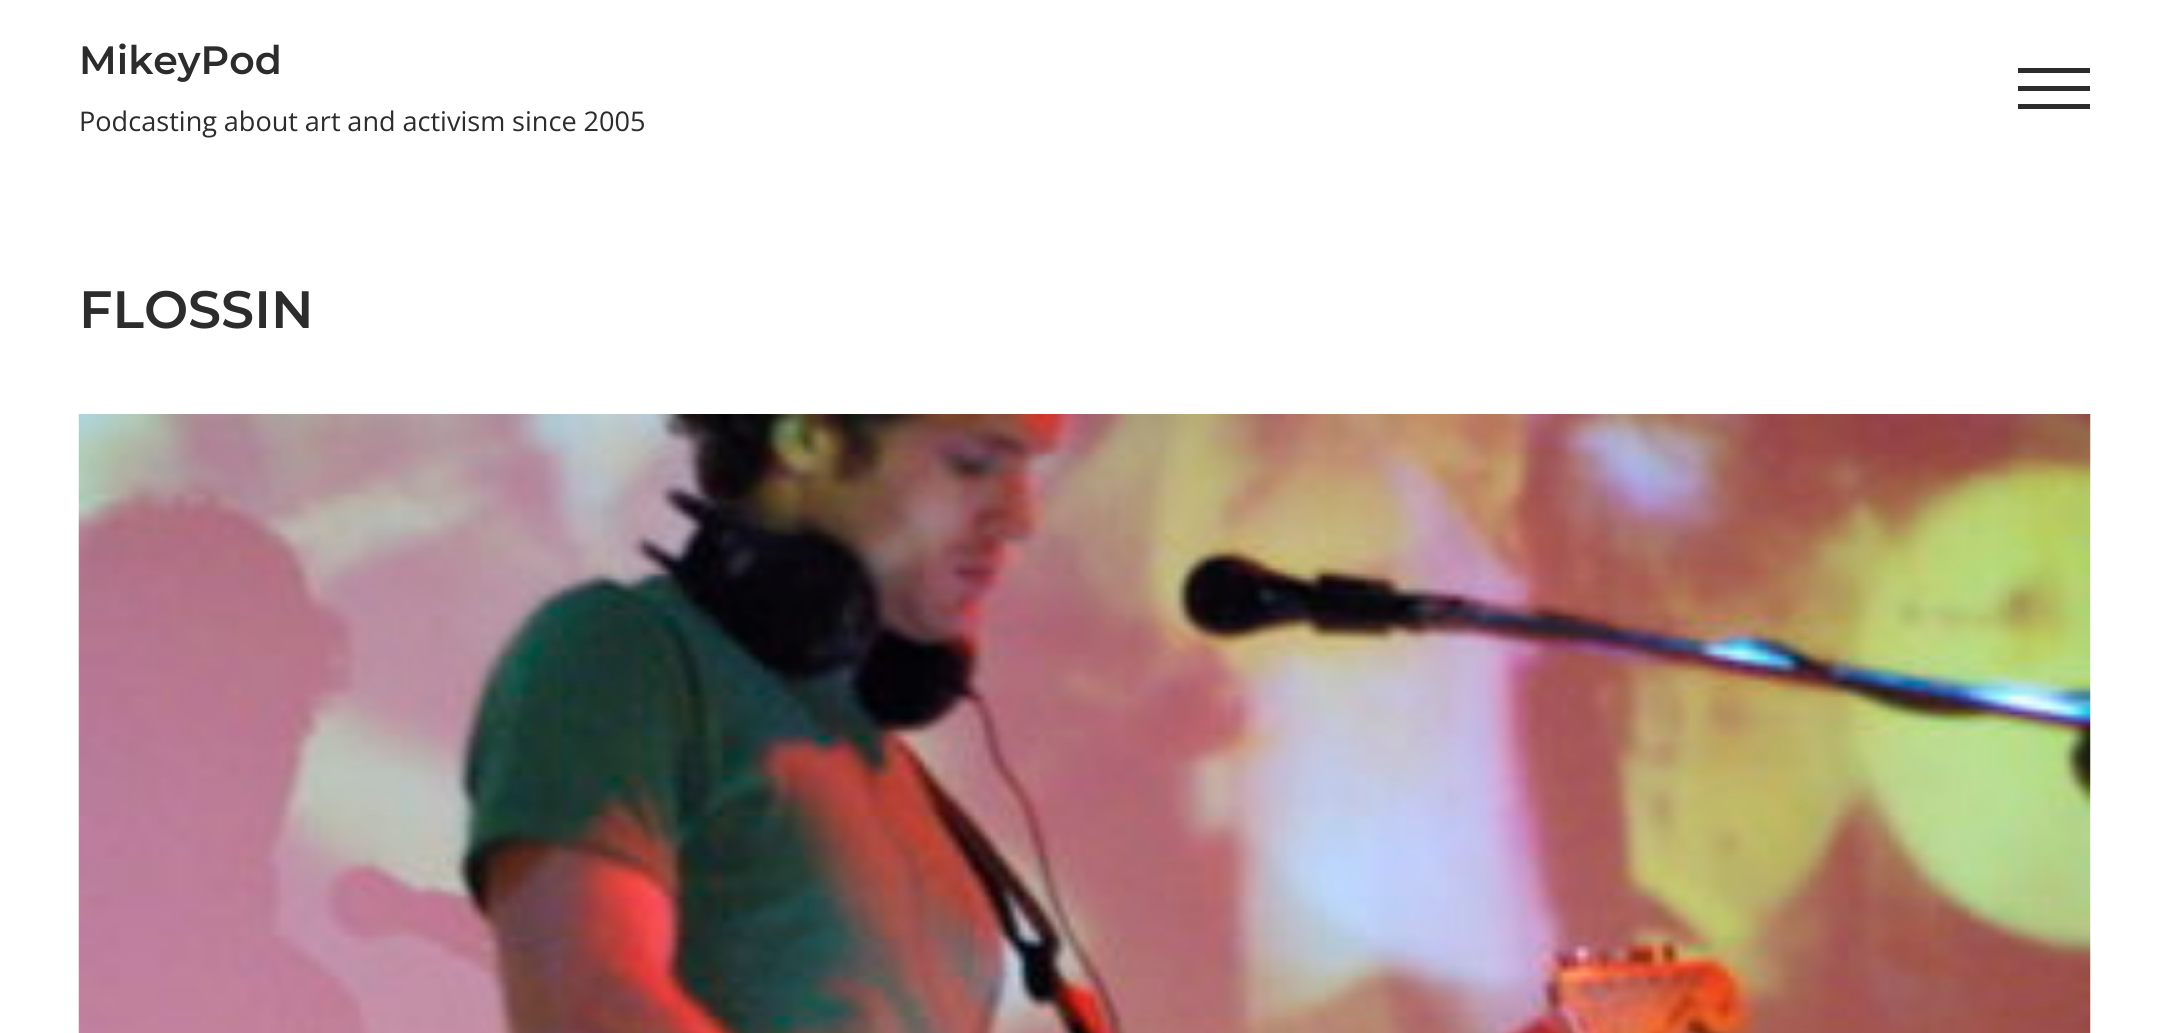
import math
import cairo



def draw_spaced(context, x, y, s, letter, word):
    context.move_to(x, y)
    for ch in s:
        context.show_text(ch)
        context.rel_move_to(letter + word * (ch == ' '), 0)


def draw_image(context, path, x, y, w, h):
    context.save()
    context.set_source_surface(cairo.ImageSurface.create_from_png(path), x, y)
    context.rectangle(x, y, w, h)
    context.fill()
    context.restore()


def draw(context):
    context.set_source_rgb(1, 1, 1)
    context.paint()
    context.set_source_rgb(44 / 255, 44 / 255, 44 / 255)
    context.rectangle(2018, 86, 72, 5)
    context.fill()
    context.rectangle(2018, 68, 72, 5)
    context.fill()
    context.rectangle(2018, 104, 72, 5)
    context.fill()
    draw_image(context, "images/1.png", 78, 414, 2013, 619)
    context.select_font_face("Montserrat SemiBold")
    context.set_font_size(39.5)
    context.move_to(79, 74)
    context.show_text("MikeyPod")
    context.select_font_face("Open Sans")
    context.set_font_size(27.1)
    draw_spaced(context, 79, 131, "Podcasting about art and activism since 2005", 0, -0.25)
    context.select_font_face("Montserrat SemiBold")
    context.set_font_size(52.5)
    context.move_to(79, 328)
    context.show_text("FLOSSIN")


surface = cairo.ImageSurface(cairo.Format.RGB24, 2167, 1033)
context = cairo.Context(surface)
options = cairo.FontOptions()
options.set_hint_metrics(cairo.HintMetrics.OFF)
options.set_hint_style(cairo.HintStyle.NONE)
context.set_font_options(options)
context.set_miter_limit(4)
draw(context)
surface.write_to_png("out.png")
